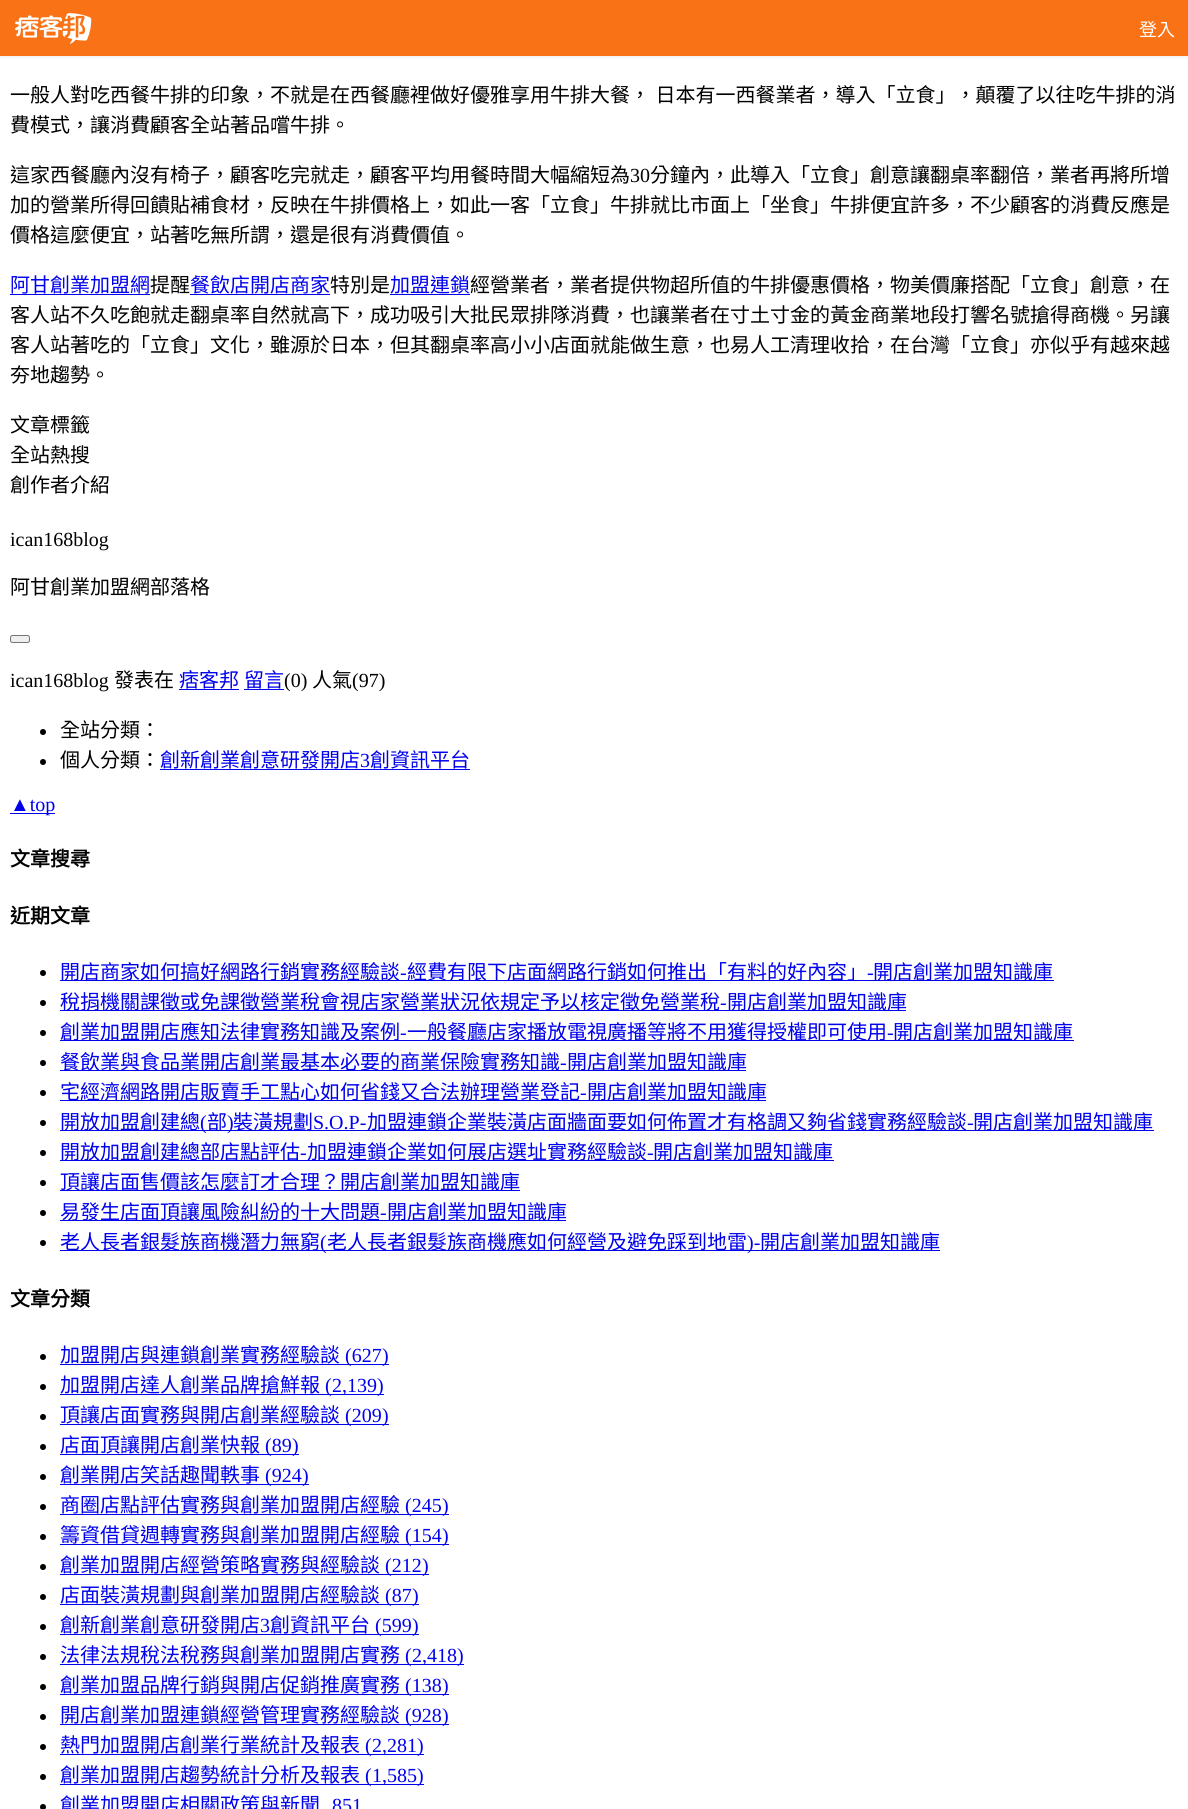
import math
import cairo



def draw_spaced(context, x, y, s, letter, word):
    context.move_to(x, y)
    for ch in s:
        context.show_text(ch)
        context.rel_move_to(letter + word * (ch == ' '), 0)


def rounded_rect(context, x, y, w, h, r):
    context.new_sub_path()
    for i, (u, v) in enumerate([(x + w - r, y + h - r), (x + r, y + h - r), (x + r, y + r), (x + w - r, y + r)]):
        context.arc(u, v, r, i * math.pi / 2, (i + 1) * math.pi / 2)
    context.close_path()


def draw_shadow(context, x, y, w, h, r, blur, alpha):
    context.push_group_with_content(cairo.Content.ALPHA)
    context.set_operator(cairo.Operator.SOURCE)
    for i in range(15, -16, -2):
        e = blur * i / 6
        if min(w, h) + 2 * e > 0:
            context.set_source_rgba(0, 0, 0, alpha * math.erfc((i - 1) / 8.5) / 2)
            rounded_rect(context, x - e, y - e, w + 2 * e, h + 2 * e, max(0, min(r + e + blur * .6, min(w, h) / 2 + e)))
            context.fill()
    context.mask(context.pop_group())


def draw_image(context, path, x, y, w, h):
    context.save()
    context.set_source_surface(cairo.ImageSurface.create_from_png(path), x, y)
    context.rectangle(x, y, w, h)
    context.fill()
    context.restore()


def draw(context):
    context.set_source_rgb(1, 1, 1)
    context.paint()
    context.set_source_rgb(0, 0, 0)
    draw_shadow(context, 0, 1, 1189, 57, 0, 1, 0.05)
    context.set_source_rgb(249 / 255, 115 / 255, 22 / 255)
    context.rectangle(0, 0, 1188, 56)
    context.fill()
    draw_image(context, "images/1.png", 15, 13, 77, 31)
    context.set_source_rgb(0, 0, 238 / 255)
    context.rectangle(10, 294, 140, 1)
    context.fill()
    context.rectangle(190, 294, 140, 1)
    context.fill()
    context.rectangle(390, 294, 80, 1)
    context.fill()
    context.set_source_rgb(239 / 255, 239 / 255, 239 / 255)
    rounded_rect(context, 10.5, 635.5, 19, 7, 2)
    context.fill_preserve()
    context.set_source_rgb(118 / 255, 118 / 255, 118 / 255)
    context.set_line_width(1)
    context.stroke()
    context.set_source_rgb(0, 0, 238 / 255)
    context.rectangle(179, 689, 60, 1)
    context.fill()
    context.rectangle(244, 689, 40, 1)
    context.fill()
    context.set_source_rgb(0, 0, 0)
    context.arc(43, 732, 3, 0, 2 * math.pi)
    context.fill()
    context.arc(43, 762, 3, 0, 2 * math.pi)
    context.fill()
    context.set_source_rgb(0, 0, 238 / 255)
    context.rectangle(160, 769, 310, 1)
    context.fill()
    context.rectangle(10, 813, 45, 1)
    context.fill()
    context.set_source_rgb(0, 0, 0)
    context.arc(43, 973, 3, 0, 2 * math.pi)
    context.fill()
    context.set_source_rgb(0, 0, 238 / 255)
    context.rectangle(60, 980, 994, 1)
    context.fill()
    context.set_source_rgb(0, 0, 0)
    context.arc(43, 1003, 3, 0, 2 * math.pi)
    context.fill()
    context.set_source_rgb(0, 0, 238 / 255)
    context.rectangle(60, 1010, 846, 1)
    context.fill()
    context.set_source_rgb(0, 0, 0)
    context.arc(43, 1033, 3, 0, 2 * math.pi)
    context.fill()
    context.set_source_rgb(0, 0, 238 / 255)
    context.rectangle(60, 1040, 1014, 1)
    context.fill()
    context.set_source_rgb(0, 0, 0)
    context.arc(43, 1063, 3, 0, 2 * math.pi)
    context.fill()
    context.set_source_rgb(0, 0, 238 / 255)
    context.rectangle(60, 1070, 686, 1)
    context.fill()
    context.set_source_rgb(0, 0, 0)
    context.arc(43, 1093, 3, 0, 2 * math.pi)
    context.fill()
    context.set_source_rgb(0, 0, 238 / 255)
    context.rectangle(60, 1100, 706, 1)
    context.fill()
    context.set_source_rgb(0, 0, 0)
    context.arc(43, 1123, 3, 0, 2 * math.pi)
    context.fill()
    context.set_source_rgb(0, 0, 238 / 255)
    context.rectangle(60, 1130, 1094, 1)
    context.fill()
    context.set_source_rgb(0, 0, 0)
    context.arc(43, 1153, 3, 0, 2 * math.pi)
    context.fill()
    context.set_source_rgb(0, 0, 238 / 255)
    context.rectangle(60, 1160, 774, 1)
    context.fill()
    context.set_source_rgb(0, 0, 0)
    context.arc(43, 1183, 3, 0, 2 * math.pi)
    context.fill()
    context.set_source_rgb(0, 0, 238 / 255)
    context.rectangle(60, 1190, 460, 1)
    context.fill()
    context.set_source_rgb(0, 0, 0)
    context.arc(43, 1213, 3, 0, 2 * math.pi)
    context.fill()
    context.set_source_rgb(0, 0, 238 / 255)
    context.rectangle(60, 1220, 506, 1)
    context.fill()
    context.set_source_rgb(0, 0, 0)
    context.arc(43, 1243, 3, 0, 2 * math.pi)
    context.fill()
    context.set_source_rgb(0, 0, 238 / 255)
    context.rectangle(60, 1250, 880, 1)
    context.fill()
    context.set_source_rgb(0, 0, 0)
    context.arc(43, 1357, 3, 0, 2 * math.pi)
    context.fill()
    context.set_source_rgb(0, 0, 238 / 255)
    context.rectangle(60, 1364, 291, 1)
    context.fill()
    context.rectangle(351, 1364, 38, 1)
    context.fill()
    context.set_source_rgb(0, 0, 0)
    context.arc(43, 1387, 3, 0, 2 * math.pi)
    context.fill()
    context.set_source_rgb(0, 0, 238 / 255)
    context.rectangle(60, 1394, 271, 1)
    context.fill()
    context.rectangle(331, 1394, 53, 1)
    context.fill()
    context.set_source_rgb(0, 0, 0)
    context.arc(43, 1417, 3, 0, 2 * math.pi)
    context.fill()
    context.set_source_rgb(0, 0, 238 / 255)
    context.rectangle(60, 1424, 291, 1)
    context.fill()
    context.rectangle(351, 1424, 38, 1)
    context.fill()
    context.set_source_rgb(0, 0, 0)
    context.arc(43, 1447, 3, 0, 2 * math.pi)
    context.fill()
    context.set_source_rgb(0, 0, 238 / 255)
    context.rectangle(60, 1454, 211, 1)
    context.fill()
    context.rectangle(271, 1454, 28, 1)
    context.fill()
    context.set_source_rgb(0, 0, 0)
    context.arc(43, 1477, 3, 0, 2 * math.pi)
    context.fill()
    context.set_source_rgb(0, 0, 238 / 255)
    context.rectangle(60, 1484, 211, 1)
    context.fill()
    context.rectangle(271, 1484, 38, 1)
    context.fill()
    context.set_source_rgb(0, 0, 0)
    context.arc(43, 1507, 3, 0, 2 * math.pi)
    context.fill()
    context.set_source_rgb(0, 0, 238 / 255)
    context.rectangle(60, 1514, 351, 1)
    context.fill()
    context.rectangle(411, 1514, 38, 1)
    context.fill()
    context.set_source_rgb(0, 0, 0)
    context.arc(43, 1537, 3, 0, 2 * math.pi)
    context.fill()
    context.set_source_rgb(0, 0, 238 / 255)
    context.rectangle(60, 1544, 351, 1)
    context.fill()
    context.rectangle(411, 1544, 38, 1)
    context.fill()
    context.set_source_rgb(0, 0, 0)
    context.arc(43, 1567, 3, 0, 2 * math.pi)
    context.fill()
    context.set_source_rgb(0, 0, 238 / 255)
    context.rectangle(60, 1574, 331, 1)
    context.fill()
    context.rectangle(391, 1574, 38, 1)
    context.fill()
    context.set_source_rgb(0, 0, 0)
    context.arc(43, 1597, 3, 0, 2 * math.pi)
    context.fill()
    context.set_source_rgb(0, 0, 238 / 255)
    context.rectangle(60, 1604, 331, 1)
    context.fill()
    context.rectangle(391, 1604, 28, 1)
    context.fill()
    context.set_source_rgb(0, 0, 0)
    context.arc(43, 1627, 3, 0, 2 * math.pi)
    context.fill()
    context.set_source_rgb(0, 0, 238 / 255)
    context.rectangle(60, 1634, 321, 1)
    context.fill()
    context.rectangle(381, 1634, 38, 1)
    context.fill()
    context.set_source_rgb(0, 0, 0)
    context.arc(43, 1657, 3, 0, 2 * math.pi)
    context.fill()
    context.set_source_rgb(0, 0, 238 / 255)
    context.rectangle(60, 1664, 351, 1)
    context.fill()
    context.rectangle(411, 1664, 53, 1)
    context.fill()
    context.set_source_rgb(0, 0, 0)
    context.arc(43, 1687, 3, 0, 2 * math.pi)
    context.fill()
    context.set_source_rgb(0, 0, 238 / 255)
    context.rectangle(60, 1694, 351, 1)
    context.fill()
    context.rectangle(411, 1694, 38, 1)
    context.fill()
    context.set_source_rgb(0, 0, 0)
    context.arc(43, 1717, 3, 0, 2 * math.pi)
    context.fill()
    context.set_source_rgb(0, 0, 238 / 255)
    context.rectangle(60, 1724, 351, 1)
    context.fill()
    context.rectangle(411, 1724, 38, 1)
    context.fill()
    context.set_source_rgb(0, 0, 0)
    context.arc(43, 1747, 3, 0, 2 * math.pi)
    context.fill()
    context.set_source_rgb(0, 0, 238 / 255)
    context.rectangle(60, 1754, 311, 1)
    context.fill()
    context.rectangle(371, 1754, 53, 1)
    context.fill()
    context.set_source_rgb(0, 0, 0)
    context.arc(43, 1777, 3, 0, 2 * math.pi)
    context.fill()
    context.set_source_rgb(0, 0, 238 / 255)
    context.rectangle(60, 1784, 311, 1)
    context.fill()
    context.rectangle(371, 1784, 53, 1)
    context.fill()
    context.set_source_rgb(0, 0, 0)
    context.arc(43, 1807, 3, 0, 2 * math.pi)
    context.fill()
    context.select_font_face("Noto Sans CJK TC")
    context.set_font_size(18)
    context.set_source_rgb(1, 1, 1)
    context.move_to(1139, 36)
    context.show_text("登入")
    context.set_font_size(20)
    context.set_source_rgb(0, 0, 0)
    draw_spaced(context, 10, 102, "一般人對吃西餐牛排的印象，不就是在西餐廳裡做好優雅享用牛排大餐， 日本有一西餐業者，導入「立食」，顛覆了以往吃牛排的消", 0, 1)
    context.move_to(10, 132)
    context.show_text("費模式，讓消費顧客全站著品嚐牛排。")
    context.move_to(10, 182)
    context.show_text("這家西餐廳內沒有椅子，顧客吃完就走，顧客平均用餐時間大幅縮短為")
    context.select_font_face("Liberation Serif")
    context.move_to(630, 182)
    context.show_text("30")
    context.select_font_face("Noto Sans CJK TC")
    context.move_to(650, 182)
    context.show_text("分鐘內，此導入「立食」創意讓翻桌率翻倍，業者再將所增")
    context.move_to(10, 212)
    context.show_text("加的營業所得回饋貼補食材，反映在牛排價格上，如此一客「立食」牛排就比市面上「坐食」牛排便宜許多，不少顧客的消費反應是")
    context.move_to(10, 242)
    context.show_text("價格這麼便宜，站著吃無所謂，還是很有消費價值。")
    context.set_source_rgb(0, 0, 238 / 255)
    context.move_to(10, 292)
    context.show_text("阿甘創業加盟網")
    context.set_source_rgb(0, 0, 0)
    context.move_to(150, 292)
    context.show_text("提醒")
    context.set_source_rgb(0, 0, 238 / 255)
    context.move_to(190, 292)
    context.show_text("餐飲店開店商家")
    context.set_source_rgb(0, 0, 0)
    context.move_to(330, 292)
    context.show_text("特別是")
    context.set_source_rgb(0, 0, 238 / 255)
    context.move_to(390, 292)
    context.show_text("加盟連鎖")
    context.set_source_rgb(0, 0, 0)
    context.move_to(470, 292)
    context.show_text("經營業者，業者提供物超所值的牛排優惠價格，物美價廉搭配「立食」創意，在")
    context.move_to(10, 322)
    context.show_text("客人站不久吃飽就走翻桌率自然就高下，成功吸引大批民眾排隊消費，也讓業者在寸土寸金的黃金商業地段打響名號搶得商機。另讓")
    context.move_to(10, 352)
    context.show_text("客人站著吃的「立食」文化，雖源於日本，但其翻桌率高小小店面就能做生意，也易人工清理收拾，在台灣「立食」亦似乎有越來越")
    context.move_to(10, 382)
    context.show_text("夯地趨勢。")
    context.move_to(10, 432)
    context.show_text("文章標籤")
    context.move_to(10, 462)
    context.show_text("全站熱搜")
    context.move_to(10, 492)
    context.show_text("創作者介紹")
    context.select_font_face("Liberation Serif")
    context.move_to(10, 546)
    context.show_text("ican168blog")
    context.select_font_face("Noto Sans CJK TC")
    context.move_to(10, 594)
    context.show_text("阿甘創業加盟網部落格")
    context.select_font_face("Liberation Serif")
    context.move_to(10, 687)
    context.show_text("ican168blog")
    context.select_font_face("Noto Sans CJK TC")
    context.move_to(114, 687)
    context.show_text("發表在")
    context.set_source_rgb(0, 0, 238 / 255)
    context.move_to(179, 687)
    context.show_text("痞客邦")
    context.move_to(244, 687)
    context.show_text("留言")
    context.select_font_face("Liberation Serif")
    context.set_source_rgb(0, 0, 0)
    context.move_to(284, 687)
    context.show_text("(0)")
    context.select_font_face("Noto Sans CJK TC")
    context.move_to(312, 687)
    context.show_text("人氣")
    context.select_font_face("Liberation Serif")
    context.move_to(352, 687)
    context.show_text("(97)")
    context.select_font_face("Noto Sans CJK TC")
    context.move_to(60, 737)
    context.show_text("全站分類：")
    context.move_to(60, 767)
    context.show_text("個人分類：")
    context.set_source_rgb(0, 0, 238 / 255)
    context.move_to(160, 767)
    context.show_text("創新創業創意研發開店")
    context.select_font_face("Liberation Serif")
    context.move_to(360, 767)
    context.show_text("3")
    context.select_font_face("Noto Sans CJK TC")
    context.move_to(370, 767)
    context.show_text("創資訊平台")
    context.select_font_face("Liberation Serif")
    context.move_to(10, 811)
    context.show_text("▲top")
    context.select_font_face("Noto Sans CJK TC", cairo.FontSlant.NORMAL, cairo.FontWeight.BOLD)
    context.set_source_rgb(0, 0, 0)
    context.move_to(10, 866)
    context.show_text("文章搜尋")
    context.move_to(10, 923)
    context.show_text("近期文章")
    context.select_font_face("Noto Sans CJK TC")
    context.set_source_rgb(0, 0, 238 / 255)
    context.move_to(60, 979)
    context.show_text("開店商家如何搞好網路行銷實務經驗談")
    context.select_font_face("Liberation Serif")
    context.move_to(400, 979)
    context.show_text("-")
    context.select_font_face("Noto Sans CJK TC")
    context.move_to(407, 979)
    context.show_text("經費有限下店面網路行銷如何推出「有料的好內容」")
    context.select_font_face("Liberation Serif")
    context.move_to(867, 979)
    context.show_text("-")
    context.select_font_face("Noto Sans CJK TC")
    context.move_to(873, 979)
    context.show_text("開店創業加盟知識庫")
    context.move_to(60, 1009)
    context.show_text("稅捐機關課徵或免課徵營業稅會視店家營業狀況依規定予以核定徵免營業稅")
    context.select_font_face("Liberation Serif")
    context.move_to(720, 1009)
    context.show_text("-")
    context.select_font_face("Noto Sans CJK TC")
    context.move_to(727, 1009)
    context.show_text("開店創業加盟知識庫")
    context.move_to(60, 1039)
    context.show_text("創業加盟開店應知法律實務知識及案例")
    context.select_font_face("Liberation Serif")
    context.move_to(400, 1039)
    context.show_text("-")
    context.select_font_face("Noto Sans CJK TC")
    context.move_to(407, 1039)
    context.show_text("一般餐廳店家播放電視廣播等將不用獲得授權即可使用")
    context.select_font_face("Liberation Serif")
    context.move_to(887, 1039)
    context.show_text("-")
    context.select_font_face("Noto Sans CJK TC")
    context.move_to(893, 1039)
    context.show_text("開店創業加盟知識庫")
    context.move_to(60, 1069)
    context.show_text("餐飲業與食品業開店創業最基本必要的商業保險實務知識")
    context.select_font_face("Liberation Serif")
    context.move_to(560, 1069)
    context.show_text("-")
    context.select_font_face("Noto Sans CJK TC")
    context.move_to(567, 1069)
    context.show_text("開店創業加盟知識庫")
    context.move_to(60, 1099)
    context.show_text("宅經濟網路開店販賣手工點心如何省錢又合法辦理營業登記")
    context.select_font_face("Liberation Serif")
    context.move_to(580, 1099)
    context.show_text("-")
    context.select_font_face("Noto Sans CJK TC")
    context.move_to(587, 1099)
    context.show_text("開店創業加盟知識庫")
    context.move_to(60, 1129)
    context.show_text("開放加盟創建總")
    context.select_font_face("Liberation Serif")
    context.move_to(200, 1129)
    context.show_text("(")
    context.select_font_face("Noto Sans CJK TC")
    context.move_to(207, 1129)
    context.show_text("部")
    context.select_font_face("Liberation Serif")
    context.move_to(227, 1129)
    context.show_text(")")
    context.select_font_face("Noto Sans CJK TC")
    context.move_to(233, 1129)
    context.show_text("裝潢規劃")
    context.select_font_face("Liberation Serif")
    context.move_to(313, 1129)
    context.show_text("S.O.P-")
    context.select_font_face("Noto Sans CJK TC")
    context.move_to(367, 1129)
    context.show_text("加盟連鎖企業裝潢店面牆面要如何佈置才有格調又夠省錢實務經驗談")
    context.select_font_face("Liberation Serif")
    context.move_to(967, 1129)
    context.show_text("-")
    context.select_font_face("Noto Sans CJK TC")
    context.move_to(973, 1129)
    context.show_text("開店創業加盟知識庫")
    context.move_to(60, 1159)
    context.show_text("開放加盟創建總部店點評估")
    context.select_font_face("Liberation Serif")
    context.move_to(300, 1159)
    context.show_text("-")
    context.select_font_face("Noto Sans CJK TC")
    context.move_to(307, 1159)
    context.show_text("加盟連鎖企業如何展店選址實務經驗談")
    context.select_font_face("Liberation Serif")
    context.move_to(647, 1159)
    context.show_text("-")
    context.select_font_face("Noto Sans CJK TC")
    context.move_to(653, 1159)
    context.show_text("開店創業加盟知識庫")
    context.move_to(60, 1189)
    context.show_text("頂讓店面售價該怎麼訂才合理？開店創業加盟知識庫")
    context.move_to(60, 1219)
    context.show_text("易發生店面頂讓風險糾紛的十大問題")
    context.select_font_face("Liberation Serif")
    context.move_to(380, 1219)
    context.show_text("-")
    context.select_font_face("Noto Sans CJK TC")
    context.move_to(387, 1219)
    context.show_text("開店創業加盟知識庫")
    context.move_to(60, 1249)
    context.show_text("老人長者銀髮族商機潛力無窮")
    context.select_font_face("Liberation Serif")
    context.move_to(320, 1249)
    context.show_text("(")
    context.select_font_face("Noto Sans CJK TC")
    context.move_to(327, 1249)
    context.show_text("老人長者銀髮族商機應如何經營及避免踩到地雷")
    context.select_font_face("Liberation Serif")
    context.move_to(747, 1249)
    context.show_text(")-")
    context.select_font_face("Noto Sans CJK TC")
    context.move_to(760, 1249)
    context.show_text("開店創業加盟知識庫")
    context.select_font_face("Noto Sans CJK TC", cairo.FontSlant.NORMAL, cairo.FontWeight.BOLD)
    context.set_source_rgb(0, 0, 0)
    context.move_to(10, 1306)
    context.show_text("文章分類")
    context.select_font_face("Noto Sans CJK TC")
    context.set_source_rgb(0, 0, 238 / 255)
    context.move_to(60, 1362)
    context.show_text("加盟開店與連鎖創業實務經驗談")
    context.select_font_face("Liberation Serif")
    context.move_to(345, 1362)
    context.show_text("(627")
    context.move_to(382, 1362)
    context.show_text(")")
    context.select_font_face("Noto Sans CJK TC")
    context.move_to(60, 1392)
    context.show_text("加盟開店達人創業品牌搶鮮報")
    context.select_font_face("Liberation Serif")
    context.move_to(325, 1392)
    context.show_text("(")
    context.move_to(332, 1392)
    context.show_text("2,139)")
    context.select_font_face("Noto Sans CJK TC")
    context.move_to(60, 1422)
    context.show_text("頂讓店面實務與開店創業經驗談")
    context.select_font_face("Liberation Serif")
    context.move_to(345, 1422)
    context.show_text("(209")
    context.move_to(382, 1422)
    context.show_text(")")
    context.select_font_face("Noto Sans CJK TC")
    context.move_to(60, 1452)
    context.show_text("店面頂讓開店創業快報")
    context.select_font_face("Liberation Serif")
    context.move_to(265, 1452)
    context.show_text("(89")
    context.move_to(292, 1452)
    context.show_text(")")
    context.select_font_face("Noto Sans CJK TC")
    context.move_to(60, 1482)
    context.show_text("創業開店笑話趣聞軼事")
    context.select_font_face("Liberation Serif")
    context.move_to(265, 1482)
    context.show_text("(924")
    context.move_to(302, 1482)
    context.show_text(")")
    context.select_font_face("Noto Sans CJK TC")
    context.move_to(60, 1512)
    context.show_text("商圈店點評估實務與創業加盟開店經驗")
    context.select_font_face("Liberation Serif")
    context.move_to(405, 1512)
    context.show_text("(245")
    context.move_to(442, 1512)
    context.show_text(")")
    context.select_font_face("Noto Sans CJK TC")
    context.move_to(60, 1542)
    context.show_text("籌資借貸週轉實務與創業加盟開店經驗")
    context.select_font_face("Liberation Serif")
    context.move_to(405, 1542)
    context.show_text("(154")
    context.move_to(442, 1542)
    context.show_text(")")
    context.select_font_face("Noto Sans CJK TC")
    context.move_to(60, 1572)
    context.show_text("創業加盟開店經營策略實務與經驗談")
    context.select_font_face("Liberation Serif")
    context.move_to(385, 1572)
    context.show_text("(212")
    context.move_to(422, 1572)
    context.show_text(")")
    context.select_font_face("Noto Sans CJK TC")
    context.move_to(60, 1602)
    context.show_text("店面裝潢規劃與創業加盟開店經驗談")
    context.select_font_face("Liberation Serif")
    context.move_to(385, 1602)
    context.show_text("(87")
    context.move_to(412, 1602)
    context.show_text(")")
    context.select_font_face("Noto Sans CJK TC")
    context.move_to(60, 1632)
    context.show_text("創新創業創意研發開店")
    context.select_font_face("Liberation Serif")
    context.move_to(260, 1632)
    context.show_text("3")
    context.select_font_face("Noto Sans CJK TC")
    context.move_to(270, 1632)
    context.show_text("創資訊平台")
    context.select_font_face("Liberation Serif")
    context.move_to(375, 1632)
    context.show_text("(599")
    context.move_to(412, 1632)
    context.show_text(")")
    context.select_font_face("Noto Sans CJK TC")
    context.move_to(60, 1662)
    context.show_text("法律法規稅法稅務與創業加盟開店實務")
    context.select_font_face("Liberation Serif")
    context.move_to(405, 1662)
    context.show_text("(")
    context.move_to(412, 1662)
    context.show_text("2,418)")
    context.select_font_face("Noto Sans CJK TC")
    context.move_to(60, 1692)
    context.show_text("創業加盟品牌行銷與開店促銷推廣實務")
    context.select_font_face("Liberation Serif")
    context.move_to(405, 1692)
    context.show_text("(138")
    context.move_to(442, 1692)
    context.show_text(")")
    context.select_font_face("Noto Sans CJK TC")
    context.move_to(60, 1722)
    context.show_text("開店創業加盟連鎖經營管理實務經驗談")
    context.select_font_face("Liberation Serif")
    context.move_to(405, 1722)
    context.show_text("(928")
    context.move_to(442, 1722)
    context.show_text(")")
    context.select_font_face("Noto Sans CJK TC")
    context.move_to(60, 1752)
    context.show_text("熱門加盟開店創業行業統計及報表")
    context.select_font_face("Liberation Serif")
    context.move_to(365, 1752)
    context.show_text("(")
    context.move_to(372, 1752)
    context.show_text("2,281)")
    context.select_font_face("Noto Sans CJK TC")
    context.move_to(60, 1782)
    context.show_text("創業加盟開店趨勢統計分析及報表")
    context.select_font_face("Liberation Serif")
    context.move_to(365, 1782)
    context.show_text("(")
    context.move_to(372, 1782)
    context.show_text("1,585)")
    context.select_font_face("Noto Sans CJK TC")
    context.move_to(60, 1812)
    context.show_text("創業加盟開店相關政策與新聞")
    context.select_font_face("Liberation Serif")
    context.move_to(332, 1812)
    context.show_text("851")


surface = cairo.ImageSurface(cairo.Format.RGB24, 1188, 1809)
context = cairo.Context(surface)
options = cairo.FontOptions()
options.set_hint_metrics(cairo.HintMetrics.OFF)
options.set_hint_style(cairo.HintStyle.NONE)
context.set_font_options(options)
context.set_miter_limit(4)
draw(context)
surface.write_to_png("out.png")
